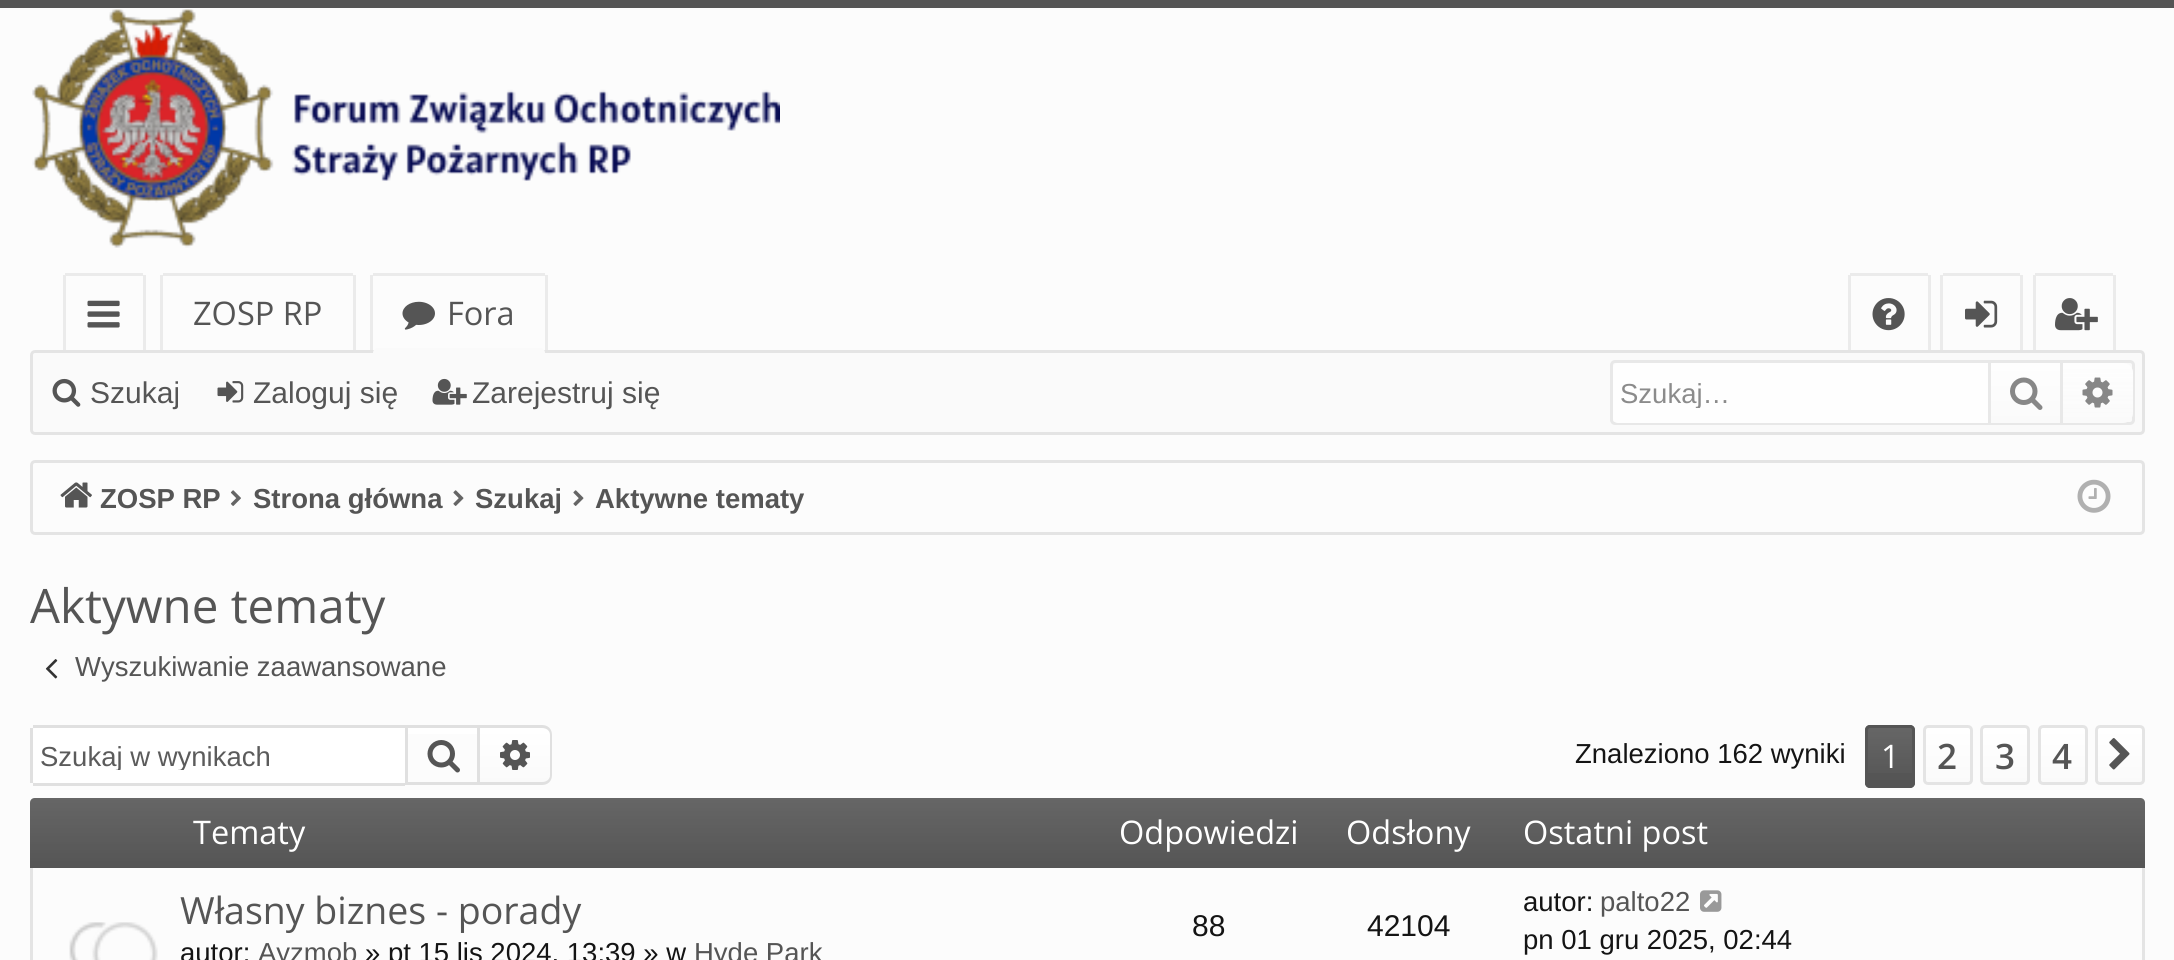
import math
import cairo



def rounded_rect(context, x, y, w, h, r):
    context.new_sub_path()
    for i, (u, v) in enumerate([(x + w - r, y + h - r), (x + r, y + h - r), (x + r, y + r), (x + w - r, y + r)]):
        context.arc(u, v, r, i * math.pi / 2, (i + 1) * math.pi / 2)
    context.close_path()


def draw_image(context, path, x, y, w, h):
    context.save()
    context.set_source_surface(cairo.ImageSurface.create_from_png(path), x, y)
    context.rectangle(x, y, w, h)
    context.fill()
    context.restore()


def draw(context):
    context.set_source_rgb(252 / 255, 252 / 255, 252 / 255)
    context.paint()
    context.set_source_rgb(85 / 255, 85 / 255, 85 / 255)
    context.rectangle(0, 0, 2174, 8)
    context.fill()
    draw_image(context, "images/1.png", 32, 9, 748, 239)
    context.set_source_rgb(235 / 255, 235 / 255, 235 / 255)
    context.rectangle(65, 273, 78, 3)
    context.fill()
    context.rectangle(143, 275, 3, 78)
    context.fill()
    context.rectangle(63, 275, 3, 78)
    context.fill()
    draw_image(context, "images/2.png", 87, 300, 33, 28)
    context.rectangle(163, 273, 190, 3)
    context.fill()
    context.rectangle(353, 275, 3, 78)
    context.fill()
    context.rectangle(160, 275, 3, 78)
    context.fill()
    context.rectangle(373, 273, 172, 3)
    context.fill()
    context.rectangle(545, 275, 3, 78)
    context.fill()
    context.rectangle(370, 275, 3, 78)
    context.fill()
    draw_image(context, "images/3.png", 402, 301, 33, 29)
    context.rectangle(1928, 275, 3, 78)
    context.fill()
    context.rectangle(1850, 273, 78, 3)
    context.fill()
    context.rectangle(1848, 275, 3, 78)
    context.fill()
    context.rectangle(2020, 275, 3, 78)
    context.fill()
    context.rectangle(1940, 275, 3, 78)
    context.fill()
    context.rectangle(2113, 275, 3, 78)
    context.fill()
    context.rectangle(2035, 273, 78, 3)
    context.fill()
    context.rectangle(2033, 275, 3, 78)
    context.fill()
    context.set_source_rgb(250 / 255, 250 / 255, 250 / 255)
    rounded_rect(context, 31.5, 351.5, 2112, 82, 3.5)
    context.fill_preserve()
    context.set_source_rgb(228 / 255, 228 / 255, 228 / 255)
    context.set_line_width(3)
    context.stroke()
    context.set_source_rgb(250 / 255, 250 / 255, 250 / 255)
    context.new_path()
    context.move_to(378, 348)
    context.line_to(540, 348)
    context.curve_to(543, 348, 545, 350, 545, 353)
    context.line_to(545, 358)
    context.line_to(373, 358)
    context.line_to(373, 353)
    context.curve_to(373, 350, 375, 348, 378, 348)
    context.close_path()
    context.fill()
    draw_image(context, "images/4.png", 1872, 298, 33, 33)
    context.set_source_rgb(235 / 255, 235 / 255, 235 / 255)
    context.rectangle(1943, 273, 77, 3)
    context.fill()
    draw_image(context, "images/5.png", 1965, 300, 33, 28)
    draw_image(context, "images/6.png", 2055, 298, 43, 33)
    draw_image(context, "images/7.png", 52, 378, 29, 29)
    draw_image(context, "images/8.png", 217, 381, 27, 22)
    draw_image(context, "images/9.png", 432, 378, 35, 27)
    rounded_rect(context, 1611.5, 361.5, 522, 62, 3.5)
    context.set_source_rgb(232 / 255, 232 / 255, 232 / 255)
    context.stroke()
    context.set_source_rgb(254 / 255, 254 / 255, 254 / 255)
    context.new_path()
    context.move_to(1618, 363)
    context.line_to(1988, 363)
    context.line_to(1988, 423)
    context.line_to(1618, 423)
    context.curve_to(1615, 423, 1613, 421, 1613, 418)
    context.line_to(1613, 368)
    context.curve_to(1613, 365, 1615, 363, 1618, 363)
    context.close_path()
    context.fill()
    gradient = cairo.LinearGradient(2025, 363, 2025, 423)
    gradient.add_color_stop_rgba(0, 254 / 255, 254 / 255, 254 / 255, 1)
    gradient.add_color_stop_rgba(1, 250 / 255, 250 / 255, 250 / 255, 1)
    context.set_source(gradient)
    context.rectangle(1991, 363, 69, 60)
    context.fill()
    context.set_source_rgb(232 / 255, 232 / 255, 232 / 255)
    context.rectangle(2060, 363, 3, 60)
    context.fill()
    context.rectangle(1988, 363, 3, 60)
    context.fill()
    draw_image(context, "images/10.png", 2010, 377, 33, 33)
    context.set_source_rgb(250 / 255, 250 / 255, 250 / 255)
    context.new_path()
    context.move_to(2063, 363)
    context.line_to(2123, 363)
    context.curve_to(2128.5, 363, 2133, 367.5, 2133, 373)
    context.line_to(2133, 413)
    context.curve_to(2133, 418.5, 2128.5, 423, 2123, 423)
    context.line_to(2063, 423)
    context.close_path()
    context.fill()
    gradient = cairo.LinearGradient(2098, 363, 2098, 423)
    gradient.add_color_stop_rgba(0, 254 / 255, 254 / 255, 254 / 255, 1)
    gradient.add_color_stop_rgba(1, 254 / 255, 254 / 255, 254 / 255, 0)
    context.set_source(gradient)
    context.new_path()
    context.move_to(2063, 363)
    context.line_to(2123, 363)
    context.curve_to(2128.5, 363, 2133, 367.5, 2133, 373)
    context.line_to(2133, 413)
    context.curve_to(2133, 418.5, 2128.5, 423, 2123, 423)
    context.line_to(2063, 423)
    context.close_path()
    context.fill()
    draw_image(context, "images/11.png", 2082, 377, 31, 31)
    rounded_rect(context, 31.5, 461.5, 2112, 72, 3.5)
    context.set_source_rgb(228 / 255, 228 / 255, 228 / 255)
    context.stroke()
    draw_image(context, "images/12.png", 60, 482, 32, 26)
    draw_image(context, "images/13.png", 230, 490, 11, 16)
    draw_image(context, "images/14.png", 453, 490, 11, 16)
    draw_image(context, "images/14.png", 573, 490, 11, 16)
    draw_image(context, "images/15.png", 2077, 479, 34, 34)
    draw_image(context, "images/16.png", 45, 659, 13, 20)
    context.set_source_rgb(1, 1, 1)
    context.new_path()
    context.move_to(35.5, 728)
    context.line_to(405, 728)
    context.line_to(405, 783)
    context.line_to(35.5, 783)
    context.curve_to(34, 783, 33, 782, 33, 780.5)
    context.line_to(33, 730.5)
    context.curve_to(33, 729, 34, 728, 35.5, 728)
    context.close_path()
    context.fill()
    context.set_source_rgb(224 / 255, 224 / 255, 224 / 255)
    context.rectangle(33, 725, 372, 3)
    context.fill()
    context.rectangle(33, 783, 372, 3)
    context.fill()
    context.rectangle(30, 728, 3, 55)
    context.fill()
    gradient = cairo.LinearGradient(443, 728, 443, 783)
    gradient.add_color_stop_rgba(0, 1, 1, 1, 1)
    gradient.add_color_stop_rgba(1, 250 / 255, 250 / 255, 250 / 255, 1)
    context.set_source(gradient)
    context.rectangle(408, 728, 69, 6)
    context.fill()
    context.rectangle(406.5, 726.5, 72, 57)
    context.set_source_rgb(224 / 255, 224 / 255, 224 / 255)
    context.stroke()
    draw_image(context, "images/17.png", 427, 740, 33, 33)
    gradient = cairo.LinearGradient(515, 728, 515, 783)
    gradient.add_color_stop_rgba(0, 1, 1, 1, 1)
    gradient.add_color_stop_rgba(1, 250 / 255, 250 / 255, 250 / 255, 1)
    context.set_source(gradient)
    context.new_path()
    context.move_to(480, 728)
    context.line_to(542, 728)
    context.curve_to(546.5, 728, 550, 731.5, 550, 736)
    context.line_to(550, 775)
    context.curve_to(550, 779.5, 546.5, 783, 542, 783)
    context.line_to(480, 783)
    context.close_path()
    context.fill()
    context.set_source_rgb(224 / 255, 224 / 255, 224 / 255)
    context.set_fill_rule(cairo.FillRule.EVEN_ODD)
    context.new_path()
    context.move_to(480, 725)
    context.line_to(542, 725)
    context.curve_to(548, 725, 552, 729, 552, 735)
    context.line_to(552, 775)
    context.curve_to(552, 781, 548, 785, 542, 785)
    context.line_to(480, 785)
    context.close_path()
    context.move_to(480, 728)
    context.line_to(542, 728)
    context.curve_to(547, 728, 550, 731, 550, 735)
    context.line_to(550, 775)
    context.curve_to(550, 779, 547, 782, 542, 782)
    context.line_to(480, 782)
    context.close_path()
    context.fill()
    draw_image(context, "images/18.png", 500, 740, 30, 30)
    context.set_source_rgb(85 / 255, 85 / 255, 85 / 255)
    rounded_rect(context, 1865, 725, 50, 63, 5)
    context.fill()
    gradient = cairo.LinearGradient(1890, 728, 1890, 785)
    gradient.add_color_stop_rgba(0, 1, 1, 1, 0.1)
    gradient.add_color_stop_rgba(1, 1, 1, 1, 0)
    context.set_source(gradient)
    context.rectangle(1865, 728, 50, 45)
    context.fill()
    rounded_rect(context, 1866.5, 726.5, 47, 60, 3.5)
    context.set_source_rgb(85 / 255, 85 / 255, 85 / 255)
    context.stroke()
    context.save()
    context.set_fill_rule(cairo.FillRule.WINDING)
    rounded_rect(context, 1923, 725, 50, 60, 5)
    context.clip()
    gradient = cairo.LinearGradient(1948, 728, 1948, 783)
    gradient.add_color_stop_rgba(0, 1, 1, 1, 1)
    gradient.add_color_stop_rgba(1, 250 / 255, 250 / 255, 250 / 255, 1)
    context.set_source(gradient)
    context.rectangle(1923, 728, 50, 55)
    context.fill()
    context.restore()
    rounded_rect(context, 1924.5, 726.5, 47, 57, 3.5)
    context.set_source_rgb(228 / 255, 228 / 255, 228 / 255)
    context.stroke()
    context.save()
    context.set_fill_rule(cairo.FillRule.WINDING)
    rounded_rect(context, 1980, 725, 50, 60, 5)
    context.clip()
    gradient = cairo.LinearGradient(2005, 728, 2005, 783)
    gradient.add_color_stop_rgba(0, 1, 1, 1, 1)
    gradient.add_color_stop_rgba(1, 250 / 255, 250 / 255, 250 / 255, 1)
    context.set_source(gradient)
    context.rectangle(1980, 728, 50, 55)
    context.fill()
    context.restore()
    rounded_rect(context, 1981.5, 726.5, 47, 57, 3.5)
    context.stroke()
    context.save()
    context.set_fill_rule(cairo.FillRule.WINDING)
    rounded_rect(context, 2038, 725, 50, 60, 5)
    context.clip()
    gradient = cairo.LinearGradient(2063, 728, 2063, 783)
    gradient.add_color_stop_rgba(0, 1, 1, 1, 1)
    gradient.add_color_stop_rgba(1, 250 / 255, 250 / 255, 250 / 255, 1)
    context.set_source(gradient)
    context.rectangle(2038, 728, 50, 55)
    context.fill()
    context.restore()
    rounded_rect(context, 2039.5, 726.5, 47, 57, 3.5)
    context.stroke()
    context.save()
    context.set_fill_rule(cairo.FillRule.WINDING)
    rounded_rect(context, 2095, 725, 50, 60, 5)
    context.clip()
    gradient = cairo.LinearGradient(2120, 728, 2120, 783)
    gradient.add_color_stop_rgba(0, 1, 1, 1, 1)
    gradient.add_color_stop_rgba(1, 250 / 255, 250 / 255, 250 / 255, 1)
    context.set_source(gradient)
    context.rectangle(2095, 728, 50, 55)
    context.fill()
    context.restore()
    rounded_rect(context, 2096.5, 726.5, 47, 57, 3.5)
    context.stroke()
    draw_image(context, "images/19.png", 2109, 738, 21, 32)
    context.new_path()
    context.move_to(35, 799.5)
    context.line_to(2140, 799.5)
    context.curve_to(2142, 799.5, 2143.5, 801, 2143.5, 803)
    context.line_to(2143.5, 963)
    context.curve_to(2143.5, 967.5, 2139.5, 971.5, 2135, 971.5)
    context.line_to(40, 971.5)
    context.curve_to(35.5, 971.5, 31.5, 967.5, 31.5, 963)
    context.line_to(31.5, 803)
    context.curve_to(31.5, 801, 33, 799.5, 35, 799.5)
    context.close_path()
    context.stroke()
    context.set_source_rgb(85 / 255, 85 / 255, 85 / 255)
    context.new_path()
    context.move_to(35, 798)
    context.line_to(2140, 798)
    context.curve_to(2143, 798, 2145, 800, 2145, 803)
    context.line_to(2145, 868)
    context.line_to(30, 868)
    context.line_to(30, 803)
    context.curve_to(30, 800, 32, 798, 35, 798)
    context.close_path()
    context.fill()
    gradient = cairo.LinearGradient(1088, 797, 1088, 868)
    gradient.add_color_stop_rgba(0, 1, 1, 1, 0.1)
    gradient.add_color_stop_rgba(1, 1, 1, 1, 0)
    context.set_source(gradient)
    context.new_path()
    context.move_to(35, 798)
    context.line_to(2140, 798)
    context.curve_to(2143, 798, 2145, 800, 2145, 803)
    context.line_to(2145, 868)
    context.line_to(30, 868)
    context.line_to(30, 803)
    context.curve_to(30, 800, 32, 798, 35, 798)
    context.close_path()
    context.fill()
    draw_image(context, "images/20.png", 69, 922, 89, 38)
    draw_image(context, "images/21.png", 1700, 890, 22, 22)
    context.select_font_face("Open Sans")
    context.set_font_size(32.5)
    context.set_source_rgb(85 / 255, 85 / 255, 85 / 255)
    context.move_to(193, 325)
    context.show_text("ZOSP RP")
    context.move_to(447, 325)
    context.show_text("Fora")
    context.select_font_face("Liberation Sans")
    context.set_font_size(30)
    context.move_to(90, 403)
    context.show_text("Szukaj")
    context.move_to(253, 403)
    context.show_text("Zaloguj się")
    context.move_to(472, 403)
    context.show_text("Zarejestruj się")
    context.save()
    context.set_fill_rule(cairo.FillRule.WINDING)
    context.rectangle(1620, 378, 350, 30)
    context.clip()
    context.set_font_size(27.5)
    context.set_source_rgb(139 / 255, 139 / 255, 139 / 255)
    context.move_to(1620, 403)
    context.show_text("Szukaj…")
    context.restore()
    context.select_font_face("Liberation Sans", cairo.FontSlant.NORMAL, cairo.FontWeight.BOLD)
    context.set_font_size(27.5)
    context.move_to(100, 508)
    context.show_text("ZOSP RP")
    context.move_to(253, 508)
    context.show_text("Strona główna")
    context.move_to(475, 508)
    context.show_text("Szukaj")
    context.move_to(595, 508)
    context.show_text("Aktywne tematy")
    context.select_font_face("Open Sans")
    context.set_font_size(47.5)
    context.move_to(30, 623)
    context.show_text("Aktywne tematy")
    context.select_font_face("Liberation Sans")
    context.set_font_size(27.5)
    context.move_to(75, 676)
    context.show_text("Wyszukiwanie zaawansowane")
    context.save()
    context.set_fill_rule(cairo.FillRule.WINDING)
    context.rectangle(40, 740, 348, 30)
    context.clip()
    context.set_source_rgb(91 / 255, 91 / 255, 91 / 255)
    context.move_to(40, 766)
    context.show_text("Szukaj w wynikach")
    context.restore()
    context.set_source_rgb(20 / 255, 20 / 255, 20 / 255)
    context.move_to(1575, 763)
    context.show_text("Znaleziono 162 wyniki")
    context.select_font_face("Open Sans")
    context.set_font_size(32.5)
    context.set_source_rgb(1, 1, 1)
    context.move_to(1881, 768)
    context.show_text("1")
    context.select_font_face("Open Sans SemiBold")
    context.set_font_size(35)
    context.set_source_rgb(85 / 255, 85 / 255, 85 / 255)
    context.move_to(1937, 769)
    context.show_text("2")
    context.move_to(1995, 769)
    context.show_text("3")
    context.move_to(2052, 769)
    context.show_text("4")
    context.select_font_face("Open Sans")
    context.set_font_size(32.5)
    context.set_source_rgb(1, 1, 1)
    context.move_to(193, 844)
    context.show_text("Tematy")
    context.move_to(1119, 844)
    context.show_text("Odpowiedzi")
    context.move_to(1346, 844)
    context.show_text("Odsłony")
    context.move_to(1523, 844)
    context.show_text("Ostatni post")
    context.set_font_size(37.5)
    context.set_source_rgb(85 / 255, 85 / 255, 85 / 255)
    context.move_to(180, 924)
    context.show_text("Własny biznes - porady")
    context.select_font_face("Liberation Sans")
    context.set_font_size(27.5)
    context.set_source_rgb(20 / 255, 20 / 255, 20 / 255)
    context.move_to(180, 962)
    context.show_text("autor:")
    context.set_source_rgb(85 / 255, 85 / 255, 85 / 255)
    context.move_to(258, 962)
    context.show_text("Ayzmob")
    context.set_source_rgb(20 / 255, 20 / 255, 20 / 255)
    context.move_to(365, 962)
    context.show_text("» pt 15 lis 2024, 13:39 » w")
    context.set_source_rgb(85 / 255, 85 / 255, 85 / 255)
    context.move_to(694, 962)
    context.show_text("Hyde Park")
    context.set_font_size(30)
    context.set_source_rgb(20 / 255, 20 / 255, 20 / 255)
    context.move_to(1192, 936)
    context.show_text("88")
    context.move_to(1367, 936)
    context.show_text("42104")
    context.set_font_size(27.5)
    context.move_to(1523, 911)
    context.show_text("autor:")
    context.set_source_rgb(85 / 255, 85 / 255, 85 / 255)
    context.move_to(1600, 911)
    context.show_text("palto22")
    context.set_source_rgb(20 / 255, 20 / 255, 20 / 255)
    context.move_to(1523, 949)
    context.show_text("pn 01 gru 2025, 02:44")


surface = cairo.ImageSurface(cairo.Format.RGB24, 2174, 960)
context = cairo.Context(surface)
options = cairo.FontOptions()
options.set_hint_metrics(cairo.HintMetrics.OFF)
options.set_hint_style(cairo.HintStyle.NONE)
context.set_font_options(options)
context.set_miter_limit(4)
draw(context)
surface.write_to_png("out.png")
